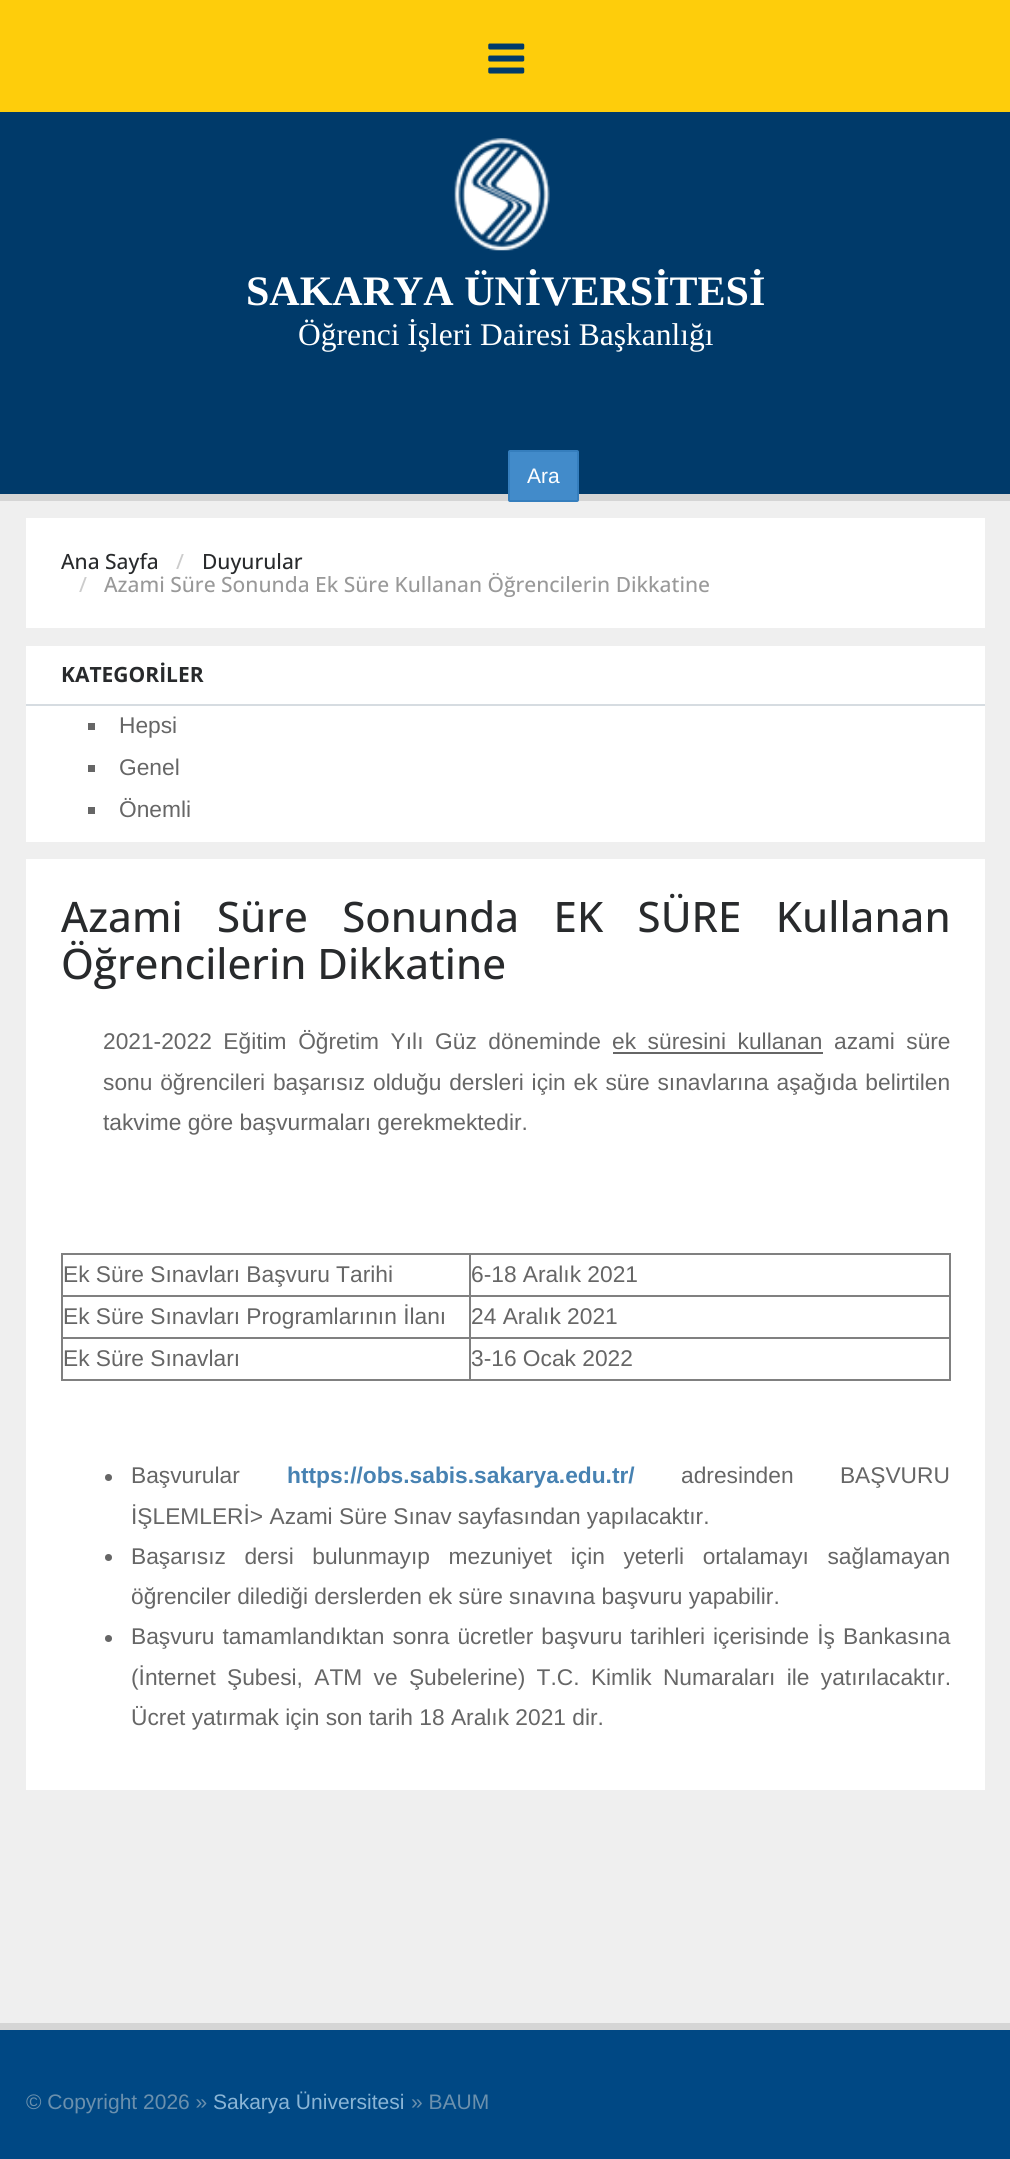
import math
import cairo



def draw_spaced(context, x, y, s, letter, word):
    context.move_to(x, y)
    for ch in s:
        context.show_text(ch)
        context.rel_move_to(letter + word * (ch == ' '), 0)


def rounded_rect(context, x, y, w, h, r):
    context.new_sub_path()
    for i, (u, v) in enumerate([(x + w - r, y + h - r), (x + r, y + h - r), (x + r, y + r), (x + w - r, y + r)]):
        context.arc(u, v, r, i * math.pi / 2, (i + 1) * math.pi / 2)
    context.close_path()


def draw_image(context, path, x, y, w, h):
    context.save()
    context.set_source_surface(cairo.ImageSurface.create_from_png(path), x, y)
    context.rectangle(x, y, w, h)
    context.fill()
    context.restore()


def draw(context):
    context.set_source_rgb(239 / 255, 239 / 255, 239 / 255)
    context.paint()
    context.set_source_rgb(254 / 255, 205 / 255, 11 / 255)
    context.rectangle(0, 0, 1010, 112)
    context.fill()
    draw_image(context, "images/1.png", 488, 43, 37, 31)
    context.set_source_rgb(0, 58 / 255, 106 / 255)
    context.rectangle(0, 112, 1010, 382)
    context.fill()
    context.set_source_rgb(213 / 255, 213 / 255, 213 / 255)
    context.rectangle(0, 494, 1010, 7)
    context.fill()
    draw_image(context, "images/2.png", 454, 138, 96, 113)
    context.set_source_rgb(66 / 255, 139 / 255, 202 / 255)
    rounded_rect(context, 509, 451, 69, 50, 1)
    context.fill_preserve()
    context.set_source_rgb(53 / 255, 126 / 255, 189 / 255)
    context.stroke()
    context.set_source_rgb(1, 1, 1)
    context.rectangle(26, 518, 959, 110)
    context.fill()
    context.rectangle(26, 646, 959, 196)
    context.fill()
    context.set_source_rgb(214 / 255, 220 / 255, 225 / 255)
    context.rectangle(26, 704, 959, 2)
    context.fill()
    context.set_source_rgb(102 / 255, 102 / 255, 102 / 255)
    context.rectangle(88, 723, 7, 7)
    context.fill()
    context.rectangle(88, 765, 7, 7)
    context.fill()
    context.rectangle(88, 807, 7, 7)
    context.fill()
    context.set_source_rgb(1, 1, 1)
    context.rectangle(26, 859, 959, 931)
    context.fill()
    context.set_source_rgb(102 / 255, 102 / 255, 102 / 255)
    context.rectangle(613, 1052, 210, 2)
    context.fill()
    context.set_source_rgb(128 / 255, 128 / 255, 128 / 255)
    context.rectangle(61, 1253, 889, 2)
    context.fill()
    context.rectangle(949, 1253, 2, 128)
    context.fill()
    context.rectangle(61, 1379, 889, 2)
    context.fill()
    context.rectangle(61, 1253, 2, 128)
    context.fill()
    context.rectangle(469, 1295, 481, 2)
    context.fill()
    context.rectangle(469, 1337, 481, 2)
    context.fill()
    context.rectangle(469, 1337, 2, 44)
    context.fill()
    context.rectangle(61, 1337, 410, 2)
    context.fill()
    context.rectangle(469, 1295, 2, 44)
    context.fill()
    context.rectangle(61, 1295, 410, 2)
    context.fill()
    context.rectangle(469, 1253, 2, 44)
    context.fill()
    context.set_source_rgb(102 / 255, 102 / 255, 102 / 255)
    context.arc(108.5, 1477.5, 3.5, 0, 2 * math.pi)
    context.fill()
    context.arc(108.5, 1557.5, 3.5, 0, 2 * math.pi)
    context.fill()
    context.arc(108.5, 1638.5, 3.5, 0, 2 * math.pi)
    context.fill()
    context.set_source_rgb(0, 72 / 255, 132 / 255)
    context.rectangle(0, 2030, 1010, 129)
    context.fill()
    context.set_source_rgb(213 / 255, 213 / 255, 213 / 255)
    context.rectangle(0, 2023, 1010, 7)
    context.fill()
    context.select_font_face("Liberation Serif", cairo.FontSlant.NORMAL, cairo.FontWeight.BOLD)
    context.set_font_size(42)
    context.set_source_rgb(1, 1, 1)
    context.move_to(246, 305)
    context.show_text("SAKARYA ÜNİVERSİTESİ")
    context.select_font_face("Liberation Serif")
    context.set_font_size(31.5)
    context.move_to(298, 345)
    context.show_text("Öğrenci İşleri Dairesi Başkanlığı")
    context.select_font_face("Liberation Sans")
    context.set_font_size(21)
    context.move_to(527, 483)
    context.show_text("Ara")
    context.select_font_face("Open Sans Medium")
    context.set_source_rgb(40 / 255, 42 / 255, 44 / 255)
    context.move_to(61, 569)
    context.show_text("Ana Sayfa")
    context.set_source_rgb(204 / 255, 204 / 255, 204 / 255)
    context.move_to(176, 569)
    context.show_text("/")
    context.set_source_rgb(40 / 255, 42 / 255, 44 / 255)
    context.move_to(202, 569)
    context.show_text("Duyurular")
    context.set_source_rgb(204 / 255, 204 / 255, 204 / 255)
    context.move_to(79, 592)
    context.show_text("/")
    context.set_source_rgb(153 / 255, 153 / 255, 153 / 255)
    context.move_to(104, 592)
    context.show_text("Azami Süre Sonunda Ek Süre Kullanan Öğrencilerin Dikkatine")
    context.select_font_face("Open Sans", cairo.FontSlant.NORMAL, cairo.FontWeight.BOLD)
    context.set_source_rgb(40 / 255, 42 / 255, 44 / 255)
    context.move_to(61, 682)
    context.show_text("KATEGORİLER")
    context.select_font_face("Liberation Sans")
    context.set_font_size(22.75)
    context.set_source_rgb(102 / 255, 102 / 255, 102 / 255)
    context.move_to(119, 733)
    context.show_text("Hepsi")
    context.move_to(119, 775)
    context.show_text("Genel")
    context.move_to(119, 817)
    context.show_text("Önemli")
    context.select_font_face("Open Sans Medium")
    context.set_font_size(42)
    context.set_source_rgb(40 / 255, 42 / 255, 44 / 255)
    draw_spaced(context, 61, 932, "Azami Süre Sonunda EK SÜRE Kullanan", 0, 23.5)
    context.move_to(61, 979)
    context.show_text("Öğrencilerin Dikkatine")
    context.select_font_face("Liberation Sans")
    context.set_font_size(22.75)
    context.set_source_rgb(102 / 255, 102 / 255, 102 / 255)
    draw_spaced(context, 103, 1049, "2021-2022 Eğitim Öğretim Yılı Güz döneminde", 0, 5.25)
    draw_spaced(context, 612, 1049, "ek süresini kullanan", 0, 5.25)
    draw_spaced(context, 834, 1049, "azami süre", 0, 5.25)
    draw_spaced(context, 103, 1090, "sonu öğrencileri başarısız olduğu dersleri için ek süre sınavlarına aşağıda belirtilen", 0, 1.5)
    context.move_to(103, 1130)
    context.show_text("takvime göre başvurmaları gerekmektedir.")
    context.move_to(63, 1282)
    context.show_text("Ek Süre Sınavları Başvuru Tarihi")
    context.move_to(471, 1282)
    context.show_text("6-18 Aralık 2021")
    context.move_to(63, 1324)
    context.show_text("Ek Süre Sınavları Programlarının İlanı")
    context.move_to(471, 1324)
    context.show_text("24 Aralık 2021")
    context.move_to(63, 1366)
    context.show_text("Ek Süre Sınavları")
    context.move_to(471, 1366)
    context.show_text("3-16 Ocak 2022")
    context.move_to(131, 1483)
    context.show_text("Başvurular")
    context.select_font_face("Liberation Sans", cairo.FontSlant.NORMAL, cairo.FontWeight.BOLD)
    context.set_source_rgb(71 / 255, 130 / 255, 178 / 255)
    context.move_to(287, 1483)
    context.show_text("https://obs.sabis.sakarya.edu.tr/")
    context.select_font_face("Liberation Sans")
    context.set_source_rgb(102 / 255, 102 / 255, 102 / 255)
    draw_spaced(context, 681, 1483, "adresinden BAŞVURU", 0, 40)
    context.move_to(131, 1524)
    context.show_text("İŞLEMLERİ> Azami Süre Sınav sayfasından yapılacaktır.")
    draw_spaced(context, 131, 1564, "Başarısız dersi bulunmayıp mezuniyet için yeterli ortalamayı sağlamayan", 0, 12.25)
    context.move_to(131, 1604)
    context.show_text("öğrenciler dilediği derslerden ek süre sınavına başvuru yapabilir.")
    draw_spaced(context, 131, 1644, "Başvuru tamamlandıktan sonra ücretler başvuru tarihleri içerisinde İş Bankasına", 0, 1.75)
    draw_spaced(context, 131, 1685, "(İnternet Şubesi, ATM ve Şubelerine) T.C. Kimlik Numaraları ile yatırılacaktır.", 0, 5)
    context.move_to(131, 1725)
    context.show_text("Ücret yatırmak için son tarih 18 Aralık 2021 dir.")
    context.set_font_size(21)
    context.set_source_rgb(107 / 255, 144 / 255, 173 / 255)
    context.move_to(26, 2109)
    context.show_text("© Copyright 2026 »")
    context.set_source_rgb(138 / 255, 181 / 255, 214 / 255)
    context.move_to(213, 2109)
    context.show_text("Sakarya Üniversitesi")
    context.set_source_rgb(107 / 255, 144 / 255, 173 / 255)
    context.move_to(411, 2109)
    context.show_text("» BAUM")


surface = cairo.ImageSurface(cairo.Format.RGB24, 1010, 2159)
context = cairo.Context(surface)
options = cairo.FontOptions()
options.set_hint_metrics(cairo.HintMetrics.OFF)
options.set_hint_style(cairo.HintStyle.NONE)
context.set_font_options(options)
context.set_miter_limit(4)
draw(context)
surface.write_to_png("out.png")
